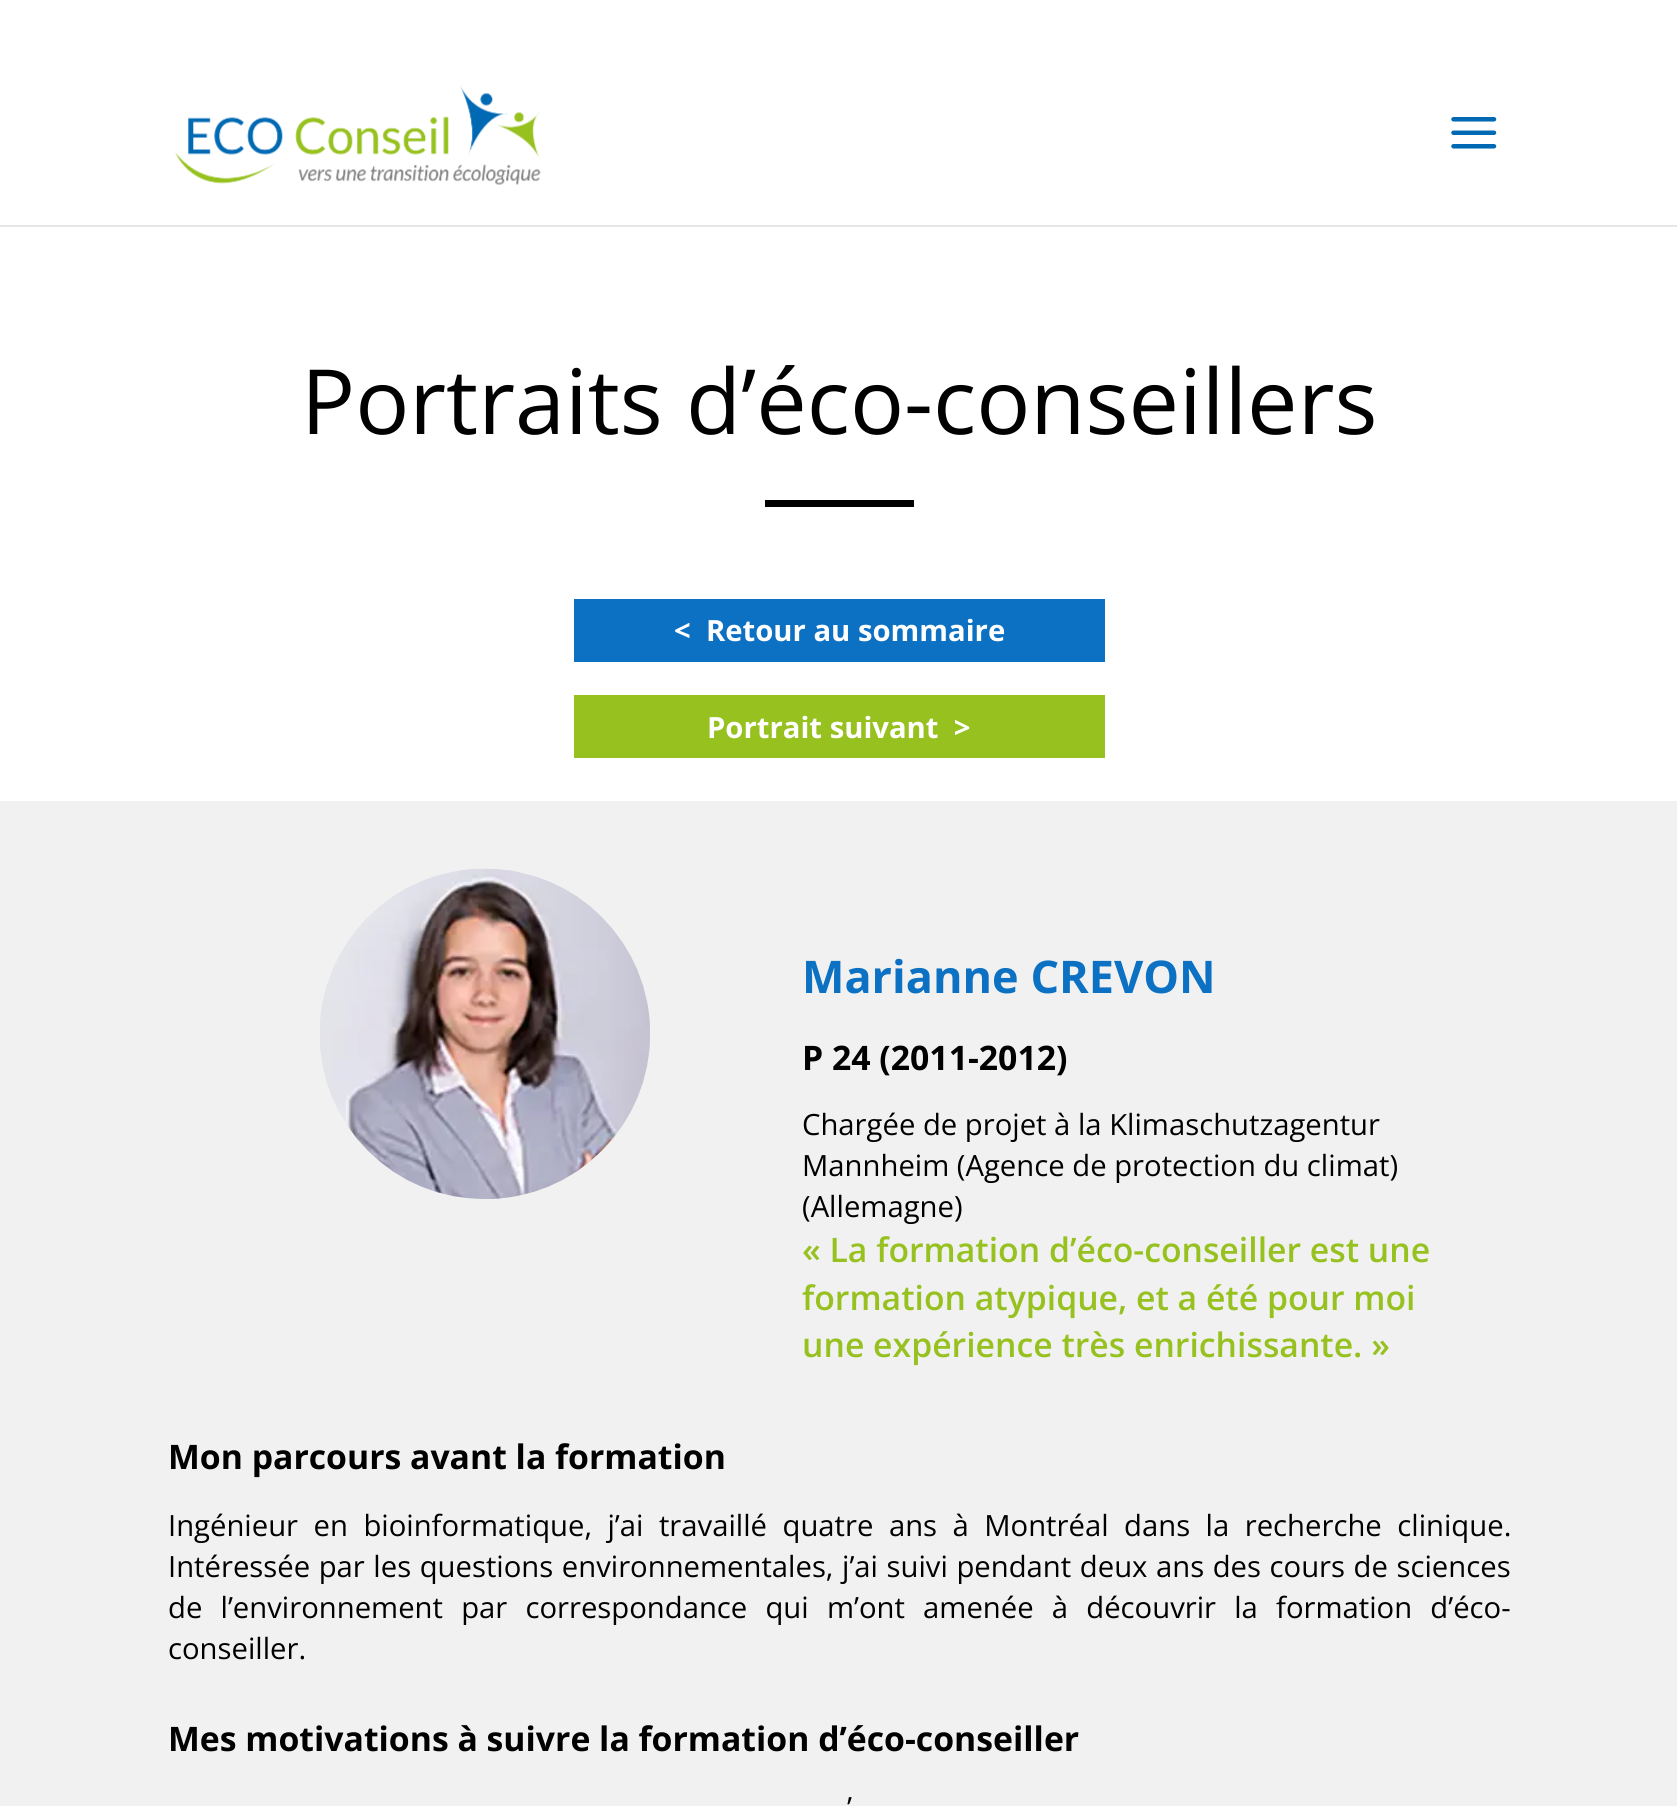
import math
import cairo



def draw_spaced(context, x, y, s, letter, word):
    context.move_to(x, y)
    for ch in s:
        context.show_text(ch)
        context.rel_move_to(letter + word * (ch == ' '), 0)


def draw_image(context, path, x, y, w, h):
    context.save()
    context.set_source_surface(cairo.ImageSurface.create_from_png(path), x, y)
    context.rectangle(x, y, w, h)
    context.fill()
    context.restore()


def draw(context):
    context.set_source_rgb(1, 1, 1)
    context.paint()
    context.set_source_rgb(230 / 255, 230 / 255, 230 / 255)
    context.new_path()
    context.move_to(0, 225)
    context.line_to(0, 227)
    context.line_to(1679, 227)
    context.line_to(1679, 47)
    context.line_to(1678, 47)
    context.line_to(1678, 225)
    context.close_path()
    context.fill()
    draw_image(context, "images/1.png", 175, 86, 366, 99)
    draw_image(context, "images/2.png", 1451, 117, 46, 32)
    context.set_source_rgb(0, 0, 0)
    context.rectangle(765, 500, 149, 7)
    context.fill()
    context.set_source_rgb(12 / 255, 113 / 255, 195 / 255)
    context.rectangle(574, 599, 531, 63)
    context.fill()
    context.set_source_rgb(150 / 255, 193 / 255, 31 / 255)
    context.rectangle(574, 695, 531, 63)
    context.fill()
    context.set_source_rgb(241 / 255, 241 / 255, 241 / 255)
    context.rectangle(0, 801, 1677, 1005)
    context.fill()
    draw_image(context, "images/3.png", 320, 868, 330, 331)
    context.select_font_face("Open Sans")
    context.set_font_size(90)
    context.set_source_rgb(0, 0, 0)
    context.move_to(301, 434)
    context.show_text("Portraits d’éco-conseillers")
    context.select_font_face("Open Sans", cairo.FontSlant.NORMAL, cairo.FontWeight.BOLD)
    context.set_font_size(29.25)
    context.set_source_rgb(1, 1, 1)
    context.move_to(674, 641)
    context.show_text("<  Retour au sommaire")
    context.move_to(707, 738)
    context.show_text("Portrait suivant  >")
    context.set_font_size(45)
    context.set_source_rgb(12 / 255, 113 / 255, 195 / 255)
    context.move_to(802, 993)
    context.show_text("Marianne CREVON")
    context.set_font_size(33.75)
    context.set_source_rgb(0, 0, 0)
    context.move_to(802, 1070)
    context.show_text("P 24 (2011-2012)")
    context.select_font_face("Open Sans")
    context.set_font_size(29.25)
    context.move_to(802, 1135)
    context.show_text("Chargée de projet à la Klimaschutzagentur")
    context.move_to(802, 1176)
    context.show_text("Mannheim (Agence de protection du climat)")
    context.move_to(802, 1217)
    context.show_text("(Allemagne)")
    context.select_font_face("Open Sans SemiBold")
    context.set_font_size(33.75)
    context.set_source_rgb(150 / 255, 193 / 255, 31 / 255)
    context.move_to(802, 1262)
    context.show_text("« La formation d’éco-conseiller est une")
    context.move_to(802, 1310)
    context.show_text("formation atypique, et a été pour moi")
    context.move_to(802, 1357)
    context.show_text("une expérience très enrichissante. »")
    context.select_font_face("Open Sans", cairo.FontSlant.NORMAL, cairo.FontWeight.BOLD)
    context.set_source_rgb(0, 0, 0)
    context.move_to(168, 1469)
    context.show_text("Mon parcours avant la formation")
    context.select_font_face("Open Sans")
    context.set_font_size(29.25)
    draw_spaced(context, 168, 1536, "Ingénieur en bioinformatique, j’ai travaillé quatre ans à Montréal dans la recherche clinique.", 0, 7.9)
    draw_spaced(context, 168, 1577, "Intéressée par les questions environnementales, j’ai suivi pendant deux ans des cours de sciences", 0, 1)
    draw_spaced(context, 168, 1618, "de l’environnement par correspondance qui m’ont amenée à découvrir la formation d’éco-", 0, 10.6)
    context.move_to(168, 1659)
    context.show_text("conseiller.")
    context.select_font_face("Open Sans", cairo.FontSlant.NORMAL, cairo.FontWeight.BOLD)
    context.set_font_size(33.75)
    context.move_to(168, 1751)
    context.show_text("Mes motivations à suivre la formation d’éco-conseiller")
    context.select_font_face("Open Sans")
    context.set_font_size(29.25)
    draw_spaced(context, 847, 1818, "’", 0, 4)


surface = cairo.ImageSurface(cairo.Format.RGB24, 1677, 1806)
context = cairo.Context(surface)
options = cairo.FontOptions()
options.set_hint_metrics(cairo.HintMetrics.OFF)
options.set_hint_style(cairo.HintStyle.NONE)
context.set_font_options(options)
context.set_miter_limit(4)
draw(context)
surface.write_to_png("out.png")
